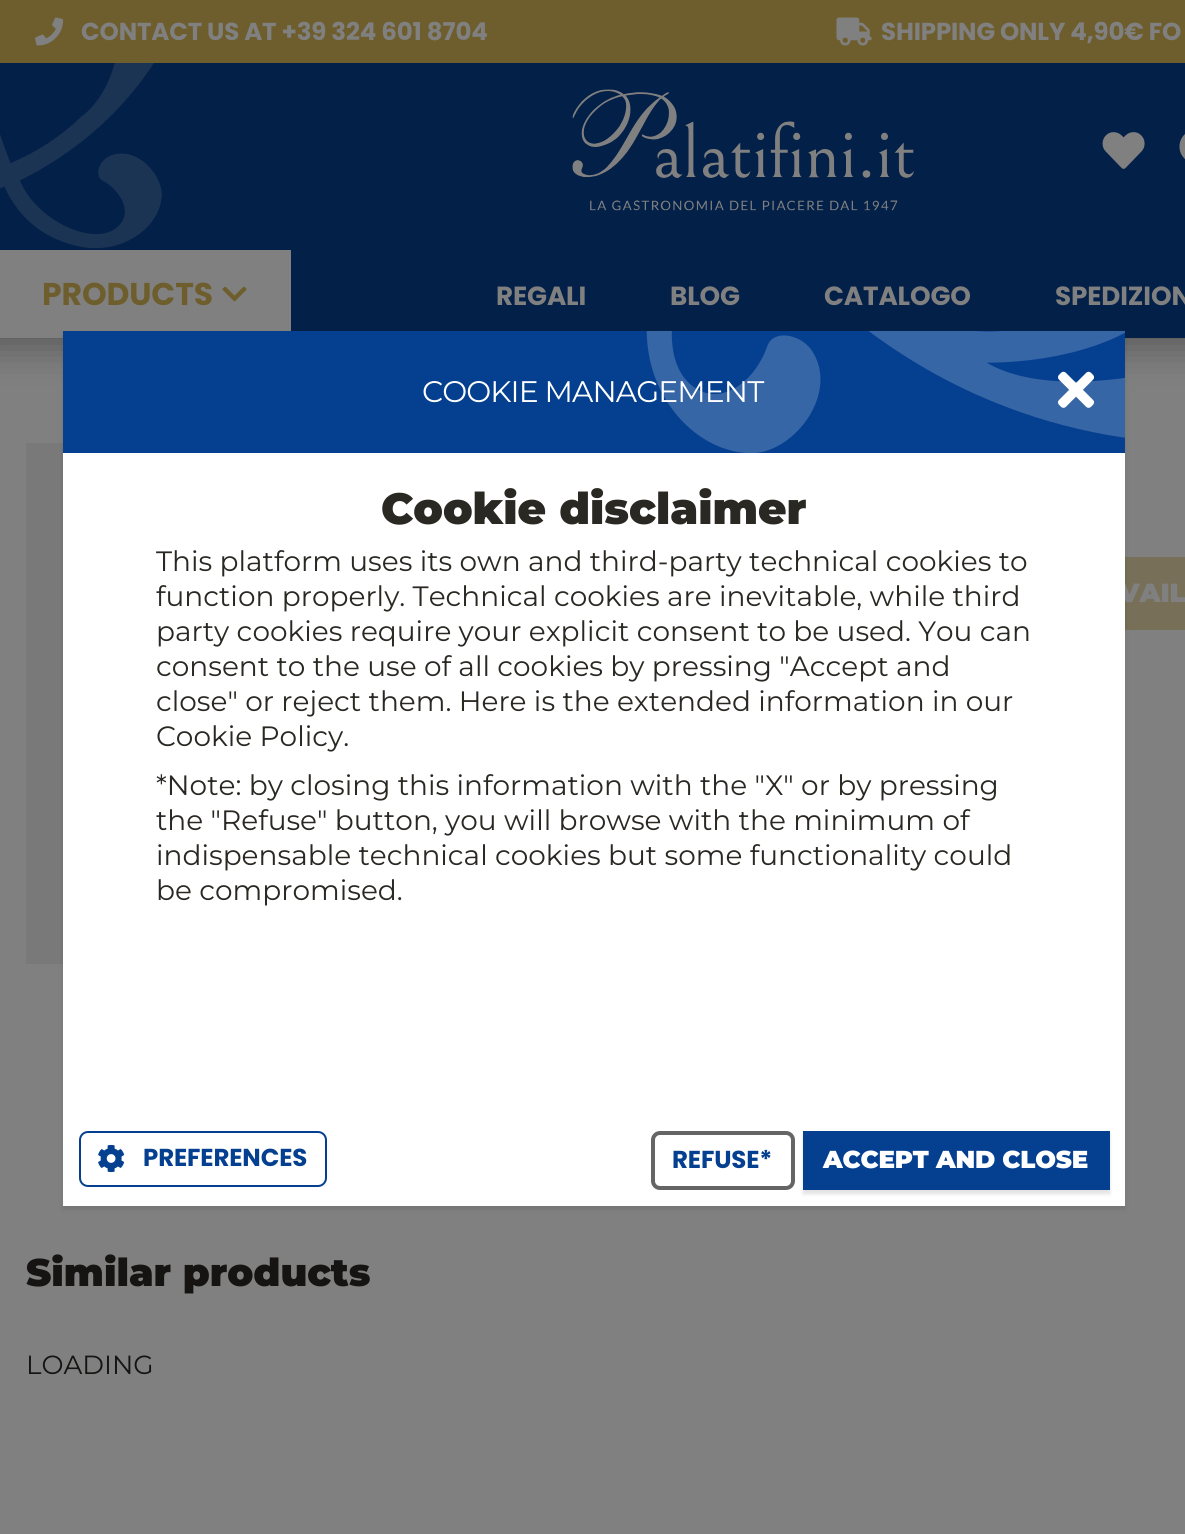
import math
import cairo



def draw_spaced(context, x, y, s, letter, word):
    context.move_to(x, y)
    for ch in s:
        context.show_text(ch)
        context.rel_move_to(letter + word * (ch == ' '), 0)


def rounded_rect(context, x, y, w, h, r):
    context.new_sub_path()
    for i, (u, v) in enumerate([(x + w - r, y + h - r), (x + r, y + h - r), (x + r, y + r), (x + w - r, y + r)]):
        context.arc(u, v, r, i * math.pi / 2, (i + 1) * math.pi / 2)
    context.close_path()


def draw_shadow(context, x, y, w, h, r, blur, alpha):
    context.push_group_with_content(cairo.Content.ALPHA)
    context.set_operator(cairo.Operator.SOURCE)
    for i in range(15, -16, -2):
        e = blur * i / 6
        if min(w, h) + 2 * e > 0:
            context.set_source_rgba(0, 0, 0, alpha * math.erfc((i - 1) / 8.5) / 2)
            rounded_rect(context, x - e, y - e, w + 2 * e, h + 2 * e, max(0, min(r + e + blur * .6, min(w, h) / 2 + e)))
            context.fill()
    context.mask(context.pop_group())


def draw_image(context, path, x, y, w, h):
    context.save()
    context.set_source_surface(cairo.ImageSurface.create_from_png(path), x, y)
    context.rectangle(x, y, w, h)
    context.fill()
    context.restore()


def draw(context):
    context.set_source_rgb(128 / 255, 128 / 255, 128 / 255)
    context.paint()
    context.set_source_rgb(110 / 255, 94 / 255, 45 / 255)
    context.rectangle(0, 0, 1185, 63)
    context.fill()
    draw_image(context, "images/1.png", 35, 17, 29, 29)
    draw_image(context, "images/2.png", 836, 17, 36, 29)
    context.set_source_rgb(0, 0, 0)
    draw_shadow(context, -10, 228, 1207, 120, 0, 17.5, 0.3)
    context.set_source_rgb(3 / 255, 32 / 255, 72 / 255)
    context.rectangle(0, 63, 1185, 275)
    context.fill()
    draw_image(context, "images/3.png", 0, 63, 162, 186)
    draw_image(context, "images/4.png", 572, 89, 342, 122)
    draw_image(context, "images/5.png", 1102, 132, 43, 37)
    draw_image(context, "images/6.png", 1179, 134, 6, 25)
    context.set_source_rgb(128 / 255, 128 / 255, 128 / 255)
    context.rectangle(0, 250, 291, 88)
    context.fill()
    draw_image(context, "images/7.png", 222, 286, 25, 16)
    context.set_source_rgb(121 / 255, 121 / 255, 121 / 255)
    context.rectangle(26, 443, 37, 521)
    context.fill()
    context.set_source_rgb(119 / 255, 111 / 255, 87 / 255)
    context.rectangle(1125, 557, 60, 73)
    context.fill()
    context.set_source_rgb(0, 0, 0)
    draw_shadow(context, 63, 334, 1062, 875, 0, 2.5, 0.1)
    context.set_source_rgb(5 / 255, 64 / 255, 144 / 255)
    context.rectangle(63, 331, 1062, 122)
    context.fill()
    context.select_font_face("Poppins", cairo.FontSlant.NORMAL, cairo.FontWeight.BOLD)
    context.set_font_size(24.5)
    context.set_source_rgb(128 / 255, 128 / 255, 128 / 255)
    draw_spaced(context, 81, 40, "CONTACT US AT +39 324 601 8704", -0.15, 0)
    draw_spaced(context, 881, 40, "SHIPPING ONLY 4,90€ FO", -0.15, 0)
    context.set_font_size(31.5)
    context.set_source_rgb(110 / 255, 94 / 255, 45 / 255)
    draw_spaced(context, 42, 305, "PRODUCTS", -0.15, 0)
    context.set_font_size(26.25)
    context.set_source_rgb(128 / 255, 128 / 255, 128 / 255)
    draw_spaced(context, 496, 305, "REGALI", -0.15, 0)
    draw_spaced(context, 670, 305, "BLOG", -0.15, 0)
    draw_spaced(context, 824, 305, "CATALOGO", -0.15, 0)
    draw_spaced(context, 1055, 305, "SPEDIZION", -0.15, 0)
    context.select_font_face("Montserrat Thin")
    draw_spaced(context, 1119, 602, "VAIL", -0.15, 0)
    context.set_font_size(38.5)
    context.set_source_rgb(21 / 255, 20 / 255, 18 / 255)
    context.move_to(26, 1286)
    context.show_text("Similar products")
    context.select_font_face("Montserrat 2 Thin")
    context.set_font_size(26.25)
    context.move_to(26, 1374)
    context.show_text("LOADING")
    context.set_source_rgb(1, 1, 1)
    context.rectangle(63, 453, 1062, 753)
    context.fill()
    context.set_font_size(29.75)
    draw_spaced(context, 422, 402, "COOKIE MANAGEMENT", -0.9, 0)
    draw_image(context, "images/9.png", 646, 331, 479, 122)
    draw_image(context, "images/8.png", 1058, 371, 37, 37)
    context.select_font_face("Montserrat Thin")
    context.set_font_size(43.75)
    context.set_source_rgb(42 / 255, 40 / 255, 35 / 255)
    context.move_to(381, 524)
    context.show_text("Cookie disclaimer")
    context.select_font_face("Montserrat 2 Thin")
    context.set_font_size(28)
    context.move_to(156, 571)
    context.show_text("This platform uses its own and third-party technical cookies to")
    context.move_to(156, 606)
    context.show_text("function properly. Technical cookies are inevitable, while third")
    context.move_to(156, 641)
    context.show_text("party cookies require your explicit consent to be used. You can")
    context.move_to(156, 676)
    context.show_text("consent to the use of all cookies by pressing \"Accept and")
    context.move_to(156, 711)
    context.show_text("close\" or reject them. Here is the extended information in our")
    context.move_to(156, 746)
    context.show_text("Cookie Policy.")
    context.move_to(156, 795)
    context.show_text("*Note: by closing this information with the \"X\" or by pressing")
    context.move_to(156, 830)
    context.show_text("the \"Refuse\" button, you will browse with the minimum of")
    context.move_to(156, 865)
    context.show_text("indispensable technical cookies but some functionality could")
    context.move_to(156, 900)
    context.show_text("be compromised.")
    rounded_rect(context, 80, 1132, 246, 54, 8)
    context.set_source_rgb(5 / 255, 64 / 255, 144 / 255)
    context.stroke()
    draw_image(context, "images/10.png", 98, 1144, 27, 29)
    context.select_font_face("Poppins", cairo.FontSlant.NORMAL, cairo.FontWeight.BOLD)
    context.set_font_size(24.5)
    draw_spaced(context, 143, 1166, "PREFERENCES", -0.15, 0)
    rounded_rect(context, 653, 1133, 140, 55, 7)
    context.set_source_rgb(101 / 255, 101 / 255, 101 / 255)
    context.set_line_width(4)
    context.stroke()
    context.set_source_rgb(5 / 255, 64 / 255, 144 / 255)
    draw_spaced(context, 672, 1168, "REFUSE*", -0.15, 0)
    context.set_source_rgb(0, 0, 0)
    draw_shadow(context, 803, 1134, 307, 60, 0, 2, 0.12)
    context.set_source_rgb(5 / 255, 64 / 255, 144 / 255)
    context.rectangle(803, 1131, 307, 59)
    context.fill()
    context.select_font_face("Montserrat Thin")
    context.set_source_rgb(1, 1, 1)
    draw_spaced(context, 823, 1168, "ACCEPT AND CLOSE", -0.15, 0)


surface = cairo.ImageSurface(cairo.Format.RGB24, 1185, 1534)
context = cairo.Context(surface)
options = cairo.FontOptions()
options.set_hint_metrics(cairo.HintMetrics.OFF)
options.set_hint_style(cairo.HintStyle.NONE)
context.set_font_options(options)
context.set_miter_limit(4)
draw(context)
surface.write_to_png("out.png")
